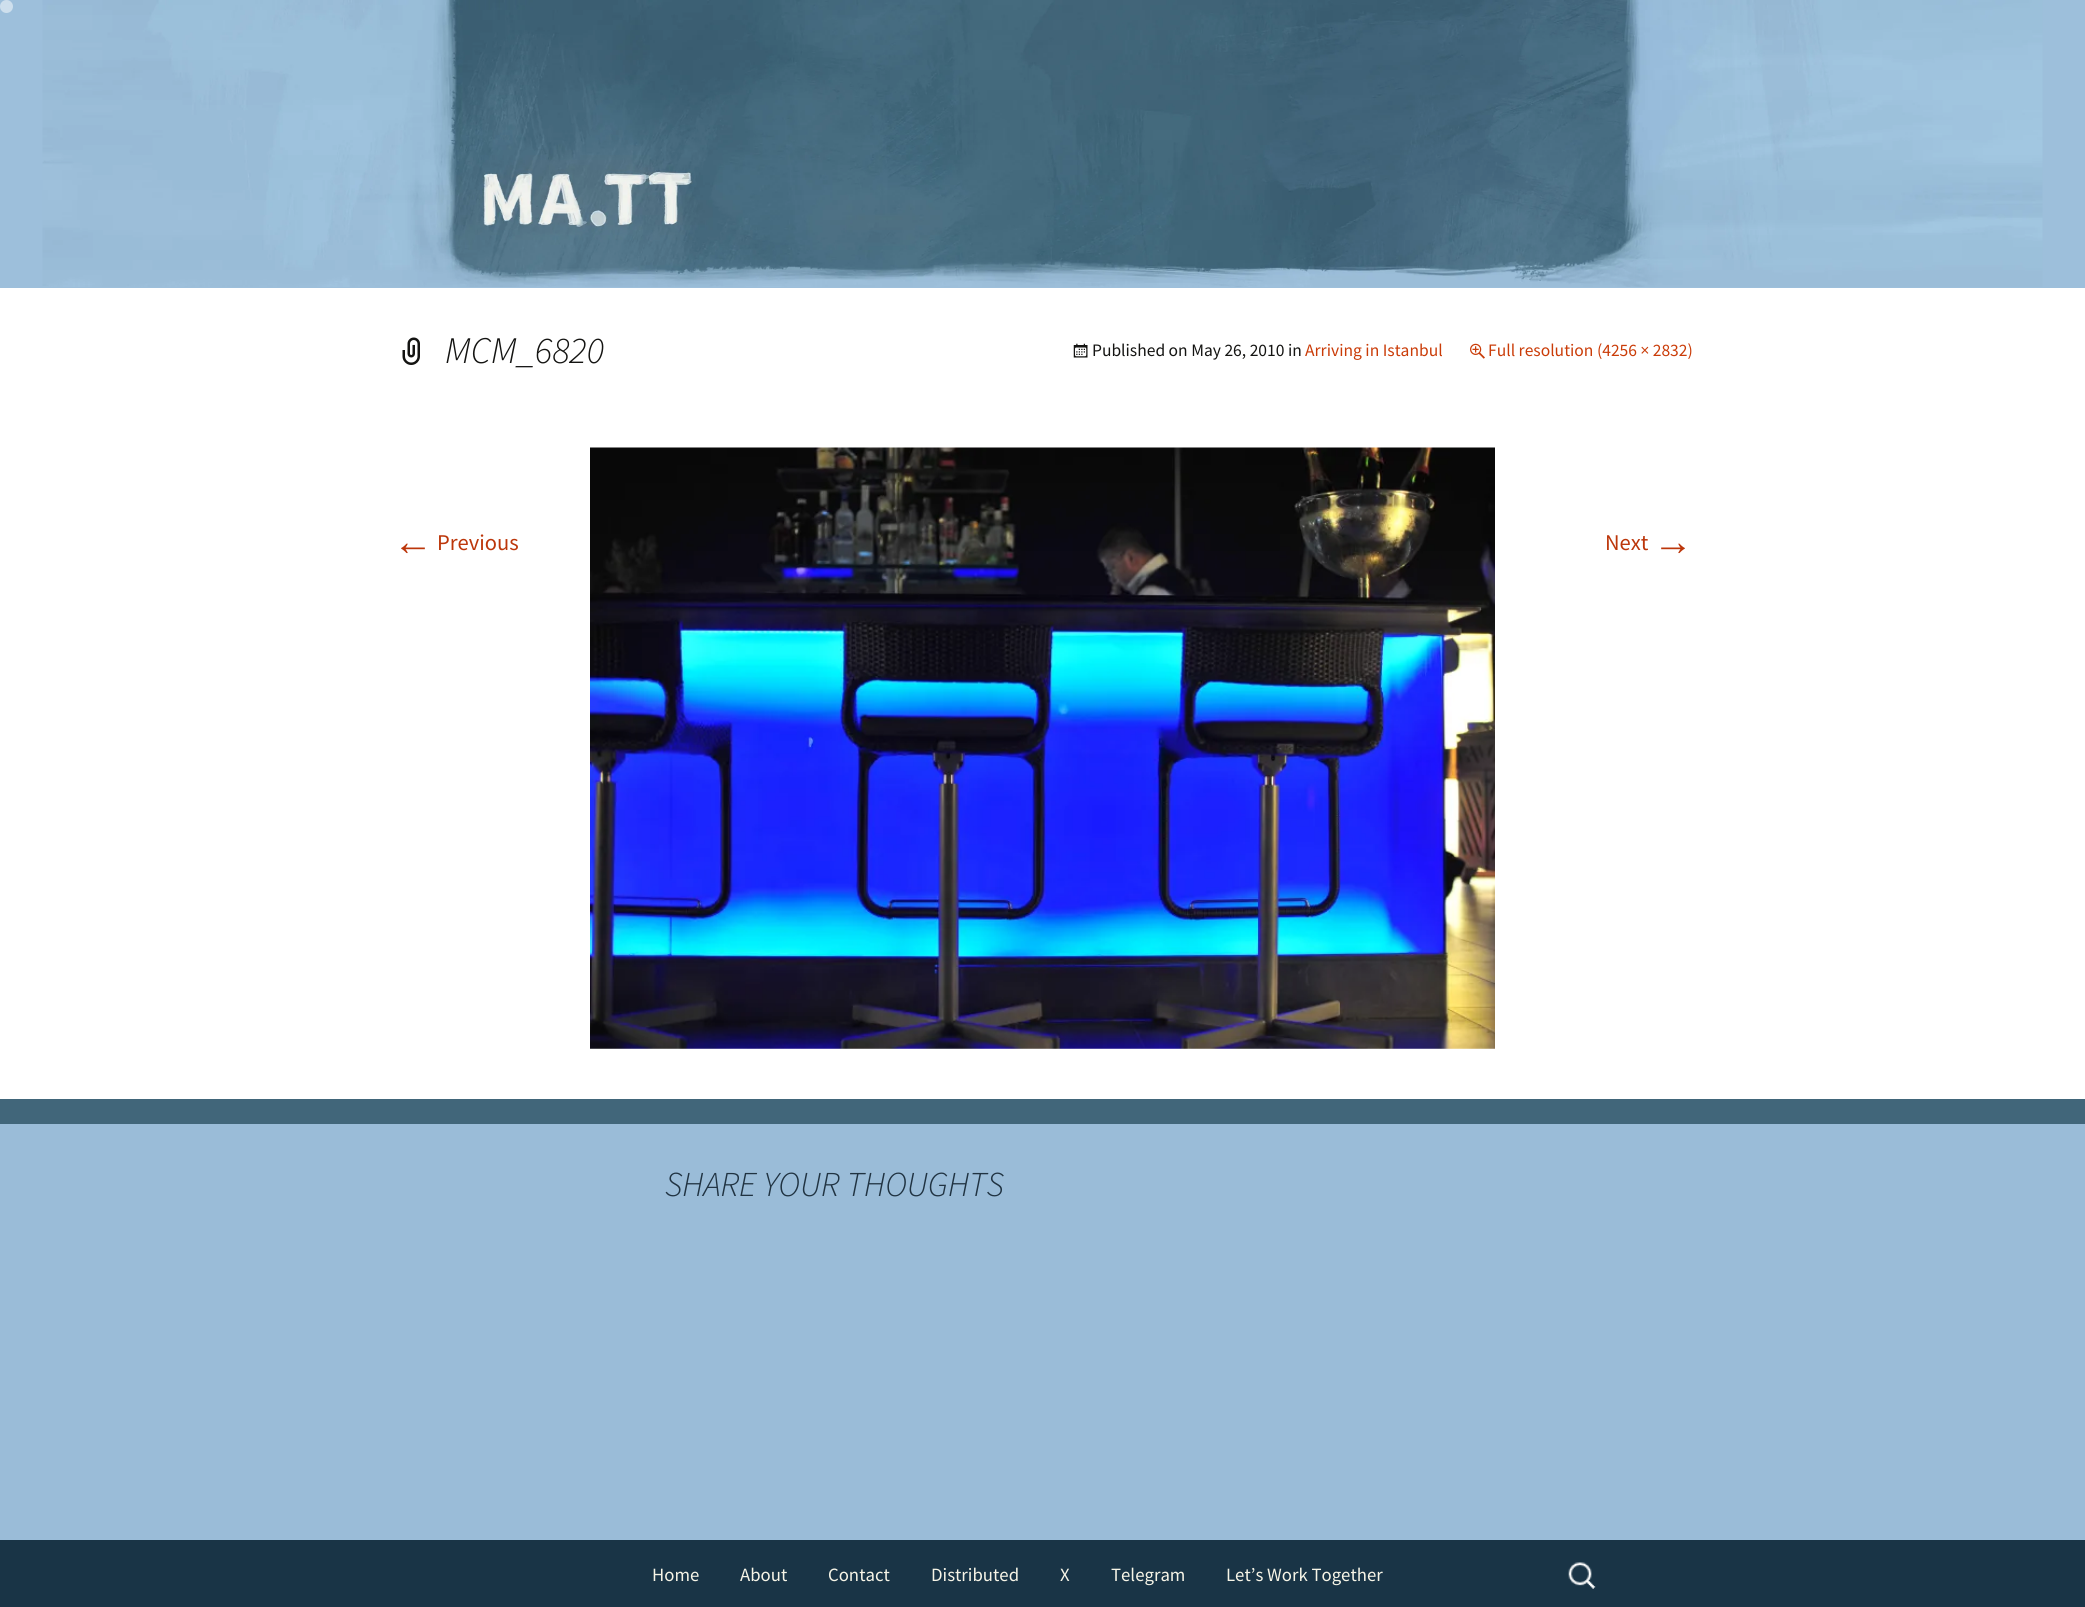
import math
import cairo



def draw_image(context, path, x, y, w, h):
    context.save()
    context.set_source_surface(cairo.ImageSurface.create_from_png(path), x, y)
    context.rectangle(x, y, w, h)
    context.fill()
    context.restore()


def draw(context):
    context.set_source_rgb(157 / 255, 191 / 255, 219 / 255)
    context.paint()
    context.set_source_rgb(206 / 255, 223 / 255, 237 / 255)
    context.arc(6.5, 6.5, 6.5, 0, 2 * math.pi)
    context.fill()
    draw_image(context, "images/1.png", 42, 0, 2001, 287)
    context.set_source_rgb(65 / 255, 102 / 255, 122 / 255)
    context.rectangle(0, 1099, 2085, 25)
    context.fill()
    context.set_source_rgb(1, 1, 1)
    context.rectangle(0, 288, 2085, 811)
    context.fill()
    draw_image(context, "images/2.png", 402, 337, 18, 28)
    draw_image(context, "images/3.png", 1073, 343, 15, 15)
    draw_image(context, "images/4.png", 1470, 343, 15, 16)
    draw_image(context, "images/5.png", 590, 447, 905, 602)
    context.set_source_rgb(154 / 255, 188 / 255, 216 / 255)
    context.rectangle(0, 1124, 2085, 416)
    context.fill()
    context.set_source_rgb(25 / 255, 52 / 255, 70 / 255)
    context.rectangle(0, 1540, 2085, 67)
    context.fill()
    draw_image(context, "images/6.png", 1568, 1562, 28, 27)
    context.select_font_face("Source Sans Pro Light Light", cairo.FontSlant.ITALIC)
    context.set_font_size(37.5)
    context.set_source_rgb(20 / 255, 20 / 255, 18 / 255)
    context.move_to(445, 363)
    context.show_text("MCM_6820")
    context.select_font_face("Source Sans Pro")
    context.set_font_size(17.5)
    context.move_to(1092, 356)
    context.show_text("Published on May 26, 2010 in")
    context.set_source_rgb(202 / 255, 60 / 255, 8 / 255)
    context.move_to(1305, 356)
    context.show_text("Arriving in Istanbul")
    context.move_to(1488, 356)
    context.show_text("Full resolution (4256 × 2832)")
    context.select_font_face("Liberation Sans")
    context.set_font_size(40)
    context.set_source_rgb(188 / 255, 54 / 255, 10 / 255)
    context.move_to(393, 555)
    context.show_text("←")
    context.select_font_face("Source Sans Pro")
    context.set_font_size(22.5)
    context.move_to(437, 550)
    context.show_text("Previous")
    context.move_to(1605, 550)
    context.show_text("Next")
    context.select_font_face("Liberation Sans")
    context.set_font_size(40)
    context.move_to(1653, 555)
    context.show_text("→")
    context.select_font_face("Source Sans Pro Light Light", cairo.FontSlant.ITALIC)
    context.set_font_size(35)
    context.set_source_rgb(32 / 255, 51 / 255, 66 / 255)
    context.move_to(665, 1196)
    context.show_text("SHARE YOUR THOUGHTS")
    context.select_font_face("Source Sans Pro")
    context.set_font_size(18.75)
    context.set_source_rgb(247 / 255, 245 / 255, 231 / 255)
    context.move_to(652, 1581)
    context.show_text("Home")
    context.move_to(740, 1581)
    context.show_text("About")
    context.move_to(828, 1581)
    context.show_text("Contact")
    context.move_to(931, 1581)
    context.show_text("Distributed")
    context.move_to(1060, 1581)
    context.show_text("X")
    context.move_to(1111, 1581)
    context.show_text("Telegram")
    context.move_to(1226, 1581)
    context.show_text("Let’s Work Together")


surface = cairo.ImageSurface(cairo.Format.RGB24, 2085, 1607)
context = cairo.Context(surface)
options = cairo.FontOptions()
options.set_hint_metrics(cairo.HintMetrics.OFF)
options.set_hint_style(cairo.HintStyle.NONE)
context.set_font_options(options)
context.set_miter_limit(4)
draw(context)
surface.write_to_png("out.png")
